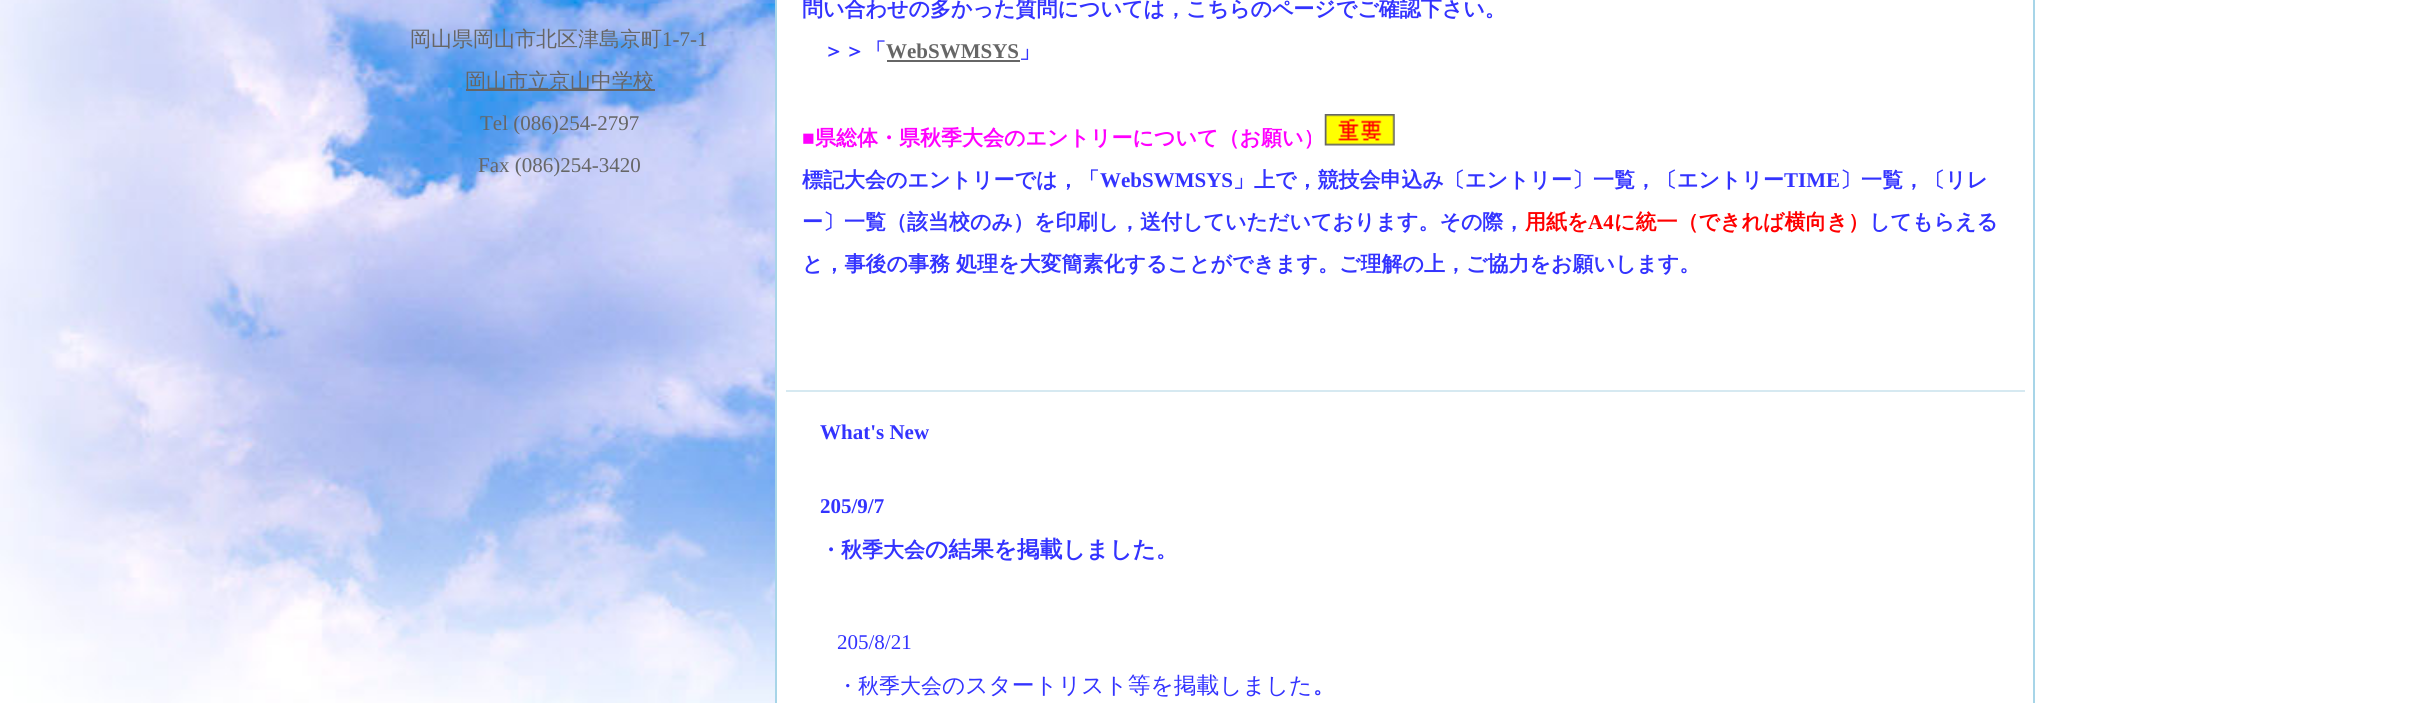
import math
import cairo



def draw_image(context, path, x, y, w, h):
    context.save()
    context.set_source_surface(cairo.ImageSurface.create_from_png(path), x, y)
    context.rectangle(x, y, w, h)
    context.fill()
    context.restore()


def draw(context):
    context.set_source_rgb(1, 1, 1)
    context.paint()
    draw_image(context, "images/1.png", 0, 0, 775, 703)
    context.set_source_rgb(102 / 255, 102 / 255, 102 / 255)
    context.rectangle(466, 89, 189, 2)
    context.fill()
    context.rectangle(776, -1, 1258, 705)
    context.set_source_rgb(167 / 255, 213 / 255, 232 / 255)
    context.stroke()
    context.set_source_rgb(102 / 255, 102 / 255, 102 / 255)
    context.rectangle(887, 60, 133, 2)
    context.fill()
    draw_image(context, "images/2.png", 1324, 114, 71, 32)
    context.set_source_rgb(214 / 255, 233 / 255, 241 / 255)
    context.rectangle(786, 390, 1239, 2)
    context.fill()
    context.select_font_face("WenQuanYi Zen Hei Medium")
    context.set_font_size(21)
    context.set_source_rgb(102 / 255, 102 / 255, 102 / 255)
    context.move_to(410, 46)
    context.show_text("岡山県岡山市北区津島京町")
    context.select_font_face("Liberation Serif")
    context.move_to(662, 46)
    context.show_text("1-7-1")
    context.select_font_face("WenQuanYi Zen Hei Medium")
    context.move_to(465, 88)
    context.show_text("岡山市立京山中学校")
    context.select_font_face("Liberation Serif")
    context.move_to(480, 130)
    context.show_text("Tel (086)254-2797")
    context.move_to(478, 172)
    context.show_text("Fax (086)254-3420")
    context.select_font_face("WenQuanYi Zen Hei", cairo.FontSlant.NORMAL, cairo.FontWeight.BOLD)
    context.set_source_rgb(51 / 255, 51 / 255, 1)
    context.move_to(802, 16)
    context.show_text("問い合わせの多かった質問については，こちらのページでご確認下さい。")
    context.move_to(823, 58)
    context.show_text("＞＞「")
    context.select_font_face("Liberation Serif", cairo.FontSlant.NORMAL, cairo.FontWeight.BOLD)
    context.set_source_rgb(102 / 255, 102 / 255, 102 / 255)
    context.move_to(886, 58)
    context.show_text("WebSWMSYS")
    context.select_font_face("WenQuanYi Zen Hei", cairo.FontSlant.NORMAL, cairo.FontWeight.BOLD)
    context.set_source_rgb(51 / 255, 51 / 255, 1)
    context.move_to(1019, 58)
    context.show_text("」")
    context.select_font_face("Liberation Serif", cairo.FontSlant.NORMAL, cairo.FontWeight.BOLD)
    context.set_source_rgb(1, 0, 1)
    context.move_to(802, 145)
    context.show_text("■")
    context.select_font_face("WenQuanYi Zen Hei", cairo.FontSlant.NORMAL, cairo.FontWeight.BOLD)
    context.move_to(815, 145)
    context.show_text("県総体・県秋季大会のエントリーについて（お願い）")
    context.set_source_rgb(51 / 255, 51 / 255, 1)
    context.move_to(802, 187)
    context.show_text("標記大会のエントリーでは，「")
    context.select_font_face("Liberation Serif", cairo.FontSlant.NORMAL, cairo.FontWeight.BOLD)
    context.move_to(1100, 187)
    context.show_text("WebSWMSYS")
    context.select_font_face("WenQuanYi Zen Hei", cairo.FontSlant.NORMAL, cairo.FontWeight.BOLD)
    context.move_to(1233, 187)
    context.show_text("」上で，競技会申込み〔エントリー〕一覧，〔エントリー")
    context.select_font_face("Liberation Serif", cairo.FontSlant.NORMAL, cairo.FontWeight.BOLD)
    context.move_to(1784, 187)
    context.show_text("TIME")
    context.select_font_face("WenQuanYi Zen Hei", cairo.FontSlant.NORMAL, cairo.FontWeight.BOLD)
    context.move_to(1840, 187)
    context.show_text("〕一覧，〔リレ")
    context.move_to(802, 229)
    context.show_text("ー〕一覧（該当校のみ）を印刷し，送付していただいております。その際，")
    context.set_source_rgb(1, 0, 0)
    context.move_to(1525, 229)
    context.show_text("用紙を")
    context.select_font_face("Liberation Serif", cairo.FontSlant.NORMAL, cairo.FontWeight.BOLD)
    context.move_to(1588, 229)
    context.show_text("A4")
    context.select_font_face("WenQuanYi Zen Hei", cairo.FontSlant.NORMAL, cairo.FontWeight.BOLD)
    context.move_to(1614, 229)
    context.show_text("に統一（できれば横向き）")
    context.set_source_rgb(51 / 255, 51 / 255, 1)
    context.move_to(1869, 229)
    context.show_text("してもらえる")
    context.move_to(802, 271)
    context.show_text("と，事後の事務")
    context.move_to(956, 271)
    context.show_text("処理を大変簡素化することができます。ご理解の上，ご協力をお願いします。")
    context.select_font_face("Liberation Serif", cairo.FontSlant.NORMAL, cairo.FontWeight.BOLD)
    context.move_to(820, 439)
    context.show_text("What's New")
    context.move_to(820, 513)
    context.show_text("205/9/7")
    context.select_font_face("WenQuanYi Zen Hei", cairo.FontSlant.NORMAL, cairo.FontWeight.BOLD)
    context.move_to(820, 557)
    context.show_text("・秋季大会")
    context.set_font_size(22.75)
    context.move_to(925, 557)
    context.show_text("の結果を掲載しました")
    context.set_font_size(21)
    context.move_to(1156, 557)
    context.show_text("。")
    context.select_font_face("Liberation Serif")
    context.move_to(837, 649)
    context.show_text("205/8/21")
    context.select_font_face("WenQuanYi Zen Hei Medium")
    context.move_to(837, 693)
    context.show_text("・秋季大会")
    context.set_font_size(22.75)
    context.move_to(942, 693)
    context.show_text("のスタートリスト等を掲載しました")
    context.select_font_face("WenQuanYi Zen Hei", cairo.FontSlant.NORMAL, cairo.FontWeight.BOLD)
    context.set_font_size(21)
    context.move_to(1313, 693)
    context.show_text("。")


surface = cairo.ImageSurface(cairo.Format.RGB24, 2417, 703)
context = cairo.Context(surface)
options = cairo.FontOptions()
options.set_hint_metrics(cairo.HintMetrics.OFF)
options.set_hint_style(cairo.HintStyle.NONE)
context.set_font_options(options)
context.set_miter_limit(4)
draw(context)
surface.write_to_png("out.png")
